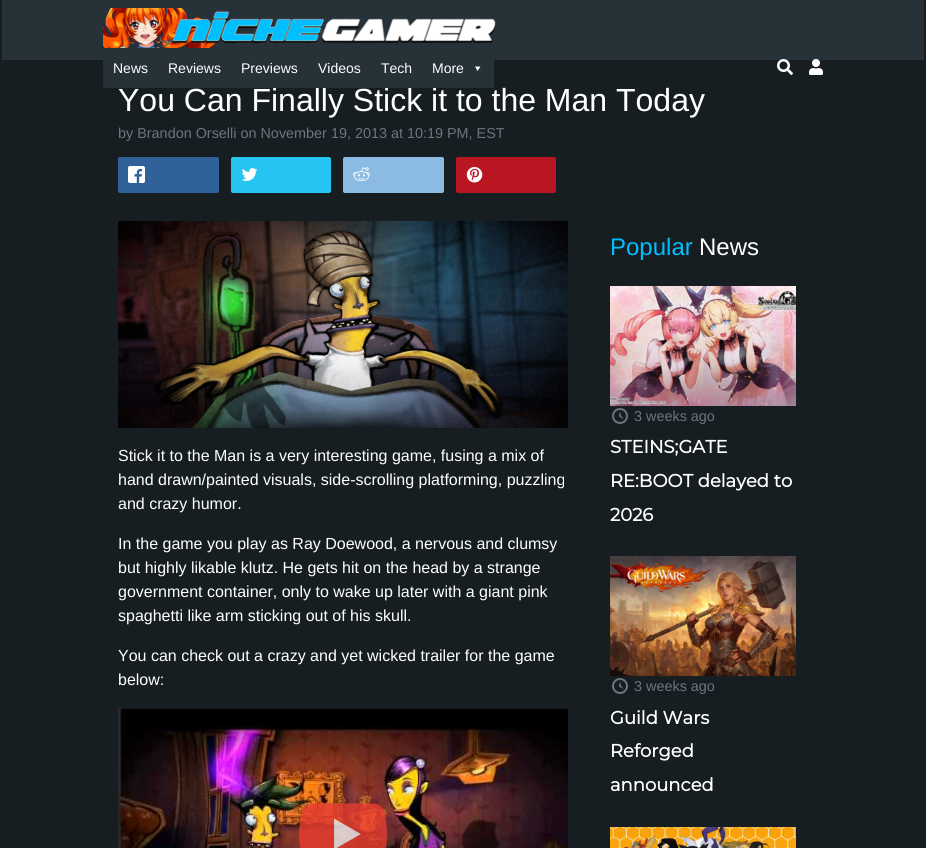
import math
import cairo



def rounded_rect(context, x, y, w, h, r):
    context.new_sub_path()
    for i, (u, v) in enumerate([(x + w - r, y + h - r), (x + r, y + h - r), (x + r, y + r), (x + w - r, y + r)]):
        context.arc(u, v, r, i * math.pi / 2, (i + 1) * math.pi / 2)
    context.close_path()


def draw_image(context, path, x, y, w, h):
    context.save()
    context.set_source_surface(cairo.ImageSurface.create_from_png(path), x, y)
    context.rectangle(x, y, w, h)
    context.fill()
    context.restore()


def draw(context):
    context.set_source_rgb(23 / 255, 30 / 255, 34 / 255)
    context.paint()
    context.set_source_rgb(39 / 255, 49 / 255, 56 / 255)
    context.rectangle(2, 0, 922, 60)
    context.fill()
    draw_image(context, "images/1.png", 103, 8, 393, 40)
    draw_image(context, "images/2.png", 777, 59, 16, 16)
    draw_image(context, "images/3.png", 809, 59, 14, 16)
    context.set_source_rgb(48 / 255, 97 / 255, 153 / 255)
    rounded_rect(context, 118, 157, 101, 36, 2)
    context.fill()
    draw_image(context, "images/4.png", 128, 166, 17, 17)
    context.set_source_rgb(38 / 255, 196 / 255, 241 / 255)
    rounded_rect(context, 231, 157, 100, 36, 2)
    context.fill()
    draw_image(context, "images/5.png", 241, 168, 17, 13)
    context.set_source_rgb(139 / 255, 187 / 255, 227 / 255)
    rounded_rect(context, 343, 157, 101, 36, 2)
    context.fill()
    draw_image(context, "images/6.png", 353, 167, 17, 15)
    context.set_source_rgb(184 / 255, 22 / 255, 33 / 255)
    rounded_rect(context, 456, 157, 100, 36, 2)
    context.fill()
    draw_image(context, "images/7.png", 466, 167, 17, 16)
    draw_image(context, "images/8.png", 118, 221, 450, 207)
    draw_image(context, "images/9.png", 118, 708, 450, 140)
    draw_image(context, "images/10.png", 299, 803, 88, 45)
    draw_image(context, "images/11.png", 610, 286, 186, 120)
    draw_image(context, "images/12.png", 612, 408, 16, 16)
    draw_image(context, "images/13.png", 610, 556, 186, 120)
    draw_image(context, "images/12.png", 612, 678, 16, 16)
    draw_image(context, "images/14.png", 610, 827, 186, 21)
    context.select_font_face("Liberation Sans")
    context.set_font_size(32)
    context.set_source_rgb(1, 1, 1)
    context.move_to(118, 111)
    context.show_text("You Can Finally Stick it to the Man Today")
    context.set_source_rgb(39 / 255, 49 / 255, 56 / 255)
    context.rectangle(103, 60, 391, 28)
    context.fill()
    context.set_source_rgb(1, 1, 1)
    context.new_path()
    context.move_to(480.5, 66.5)
    context.line_to(477.5, 71)
    context.line_to(475, 66.5)
    context.close_path()
    context.fill()
    context.set_font_size(14)
    context.move_to(432, 73)
    context.show_text("More")
    context.move_to(381, 73)
    context.show_text("Tech")
    context.move_to(318, 73)
    context.show_text("Videos")
    context.move_to(241, 73)
    context.show_text("Previews")
    context.move_to(168, 73)
    context.show_text("Reviews")
    context.move_to(113, 73)
    context.show_text("News")
    context.set_font_size(14.4)
    context.set_source_rgb(108 / 255, 117 / 255, 125 / 255)
    context.move_to(118, 138)
    context.show_text("by Brandon Orselli on November 19, 2013 at 10:19 PM, EST")
    context.set_font_size(16)
    context.set_source_rgb(1, 1, 1)
    context.move_to(118, 461)
    context.show_text("Stick it to the Man is a very interesting game, fusing a mix of")
    context.move_to(118, 485)
    context.show_text("hand drawn/painted visuals, side-scrolling platforming, puzzling")
    context.move_to(118, 509)
    context.show_text("and crazy humor.")
    context.move_to(118, 549)
    context.show_text("In the game you play as Ray Doewood, a nervous and clumsy")
    context.move_to(118, 573)
    context.show_text("but highly likable klutz. He gets hit on the head by a strange")
    context.move_to(118, 597)
    context.show_text("government container, only to wake up later with a giant pink")
    context.move_to(118, 621)
    context.show_text("spaghetti like arm sticking out of his skull.")
    context.move_to(118, 661)
    context.show_text("You can check out a crazy and yet wicked trailer for the game")
    context.move_to(118, 685)
    context.show_text("below:")
    context.set_font_size(24)
    context.set_source_rgb(0, 191 / 255, 1)
    context.move_to(610, 255)
    context.show_text("Popular")
    context.set_source_rgb(1, 1, 1)
    context.move_to(699, 255)
    context.show_text("News")
    context.set_font_size(14.4)
    context.set_source_rgb(108 / 255, 117 / 255, 125 / 255)
    context.move_to(634, 421)
    context.show_text("3 weeks ago")
    context.select_font_face("Montserrat", cairo.FontSlant.NORMAL, cairo.FontWeight.BOLD)
    context.set_font_size(18)
    context.set_source_rgb(1, 1, 1)
    context.move_to(610, 453)
    context.show_text("STEINS;GATE")
    context.move_to(610, 487)
    context.show_text("RE:BOOT delayed to")
    context.move_to(610, 521)
    context.show_text("2026")
    context.select_font_face("Liberation Sans")
    context.set_font_size(14.4)
    context.set_source_rgb(108 / 255, 117 / 255, 125 / 255)
    context.move_to(634, 691)
    context.show_text("3 weeks ago")
    context.select_font_face("Montserrat", cairo.FontSlant.NORMAL, cairo.FontWeight.BOLD)
    context.set_font_size(18)
    context.set_source_rgb(1, 1, 1)
    context.move_to(610, 724)
    context.show_text("Guild Wars")
    context.move_to(610, 757)
    context.show_text("Reforged")
    context.move_to(610, 791)
    context.show_text("announced")


surface = cairo.ImageSurface(cairo.Format.RGB24, 926, 848)
context = cairo.Context(surface)
options = cairo.FontOptions()
options.set_hint_metrics(cairo.HintMetrics.OFF)
options.set_hint_style(cairo.HintStyle.NONE)
context.set_font_options(options)
context.set_miter_limit(4)
draw(context)
surface.write_to_png("out.png")
